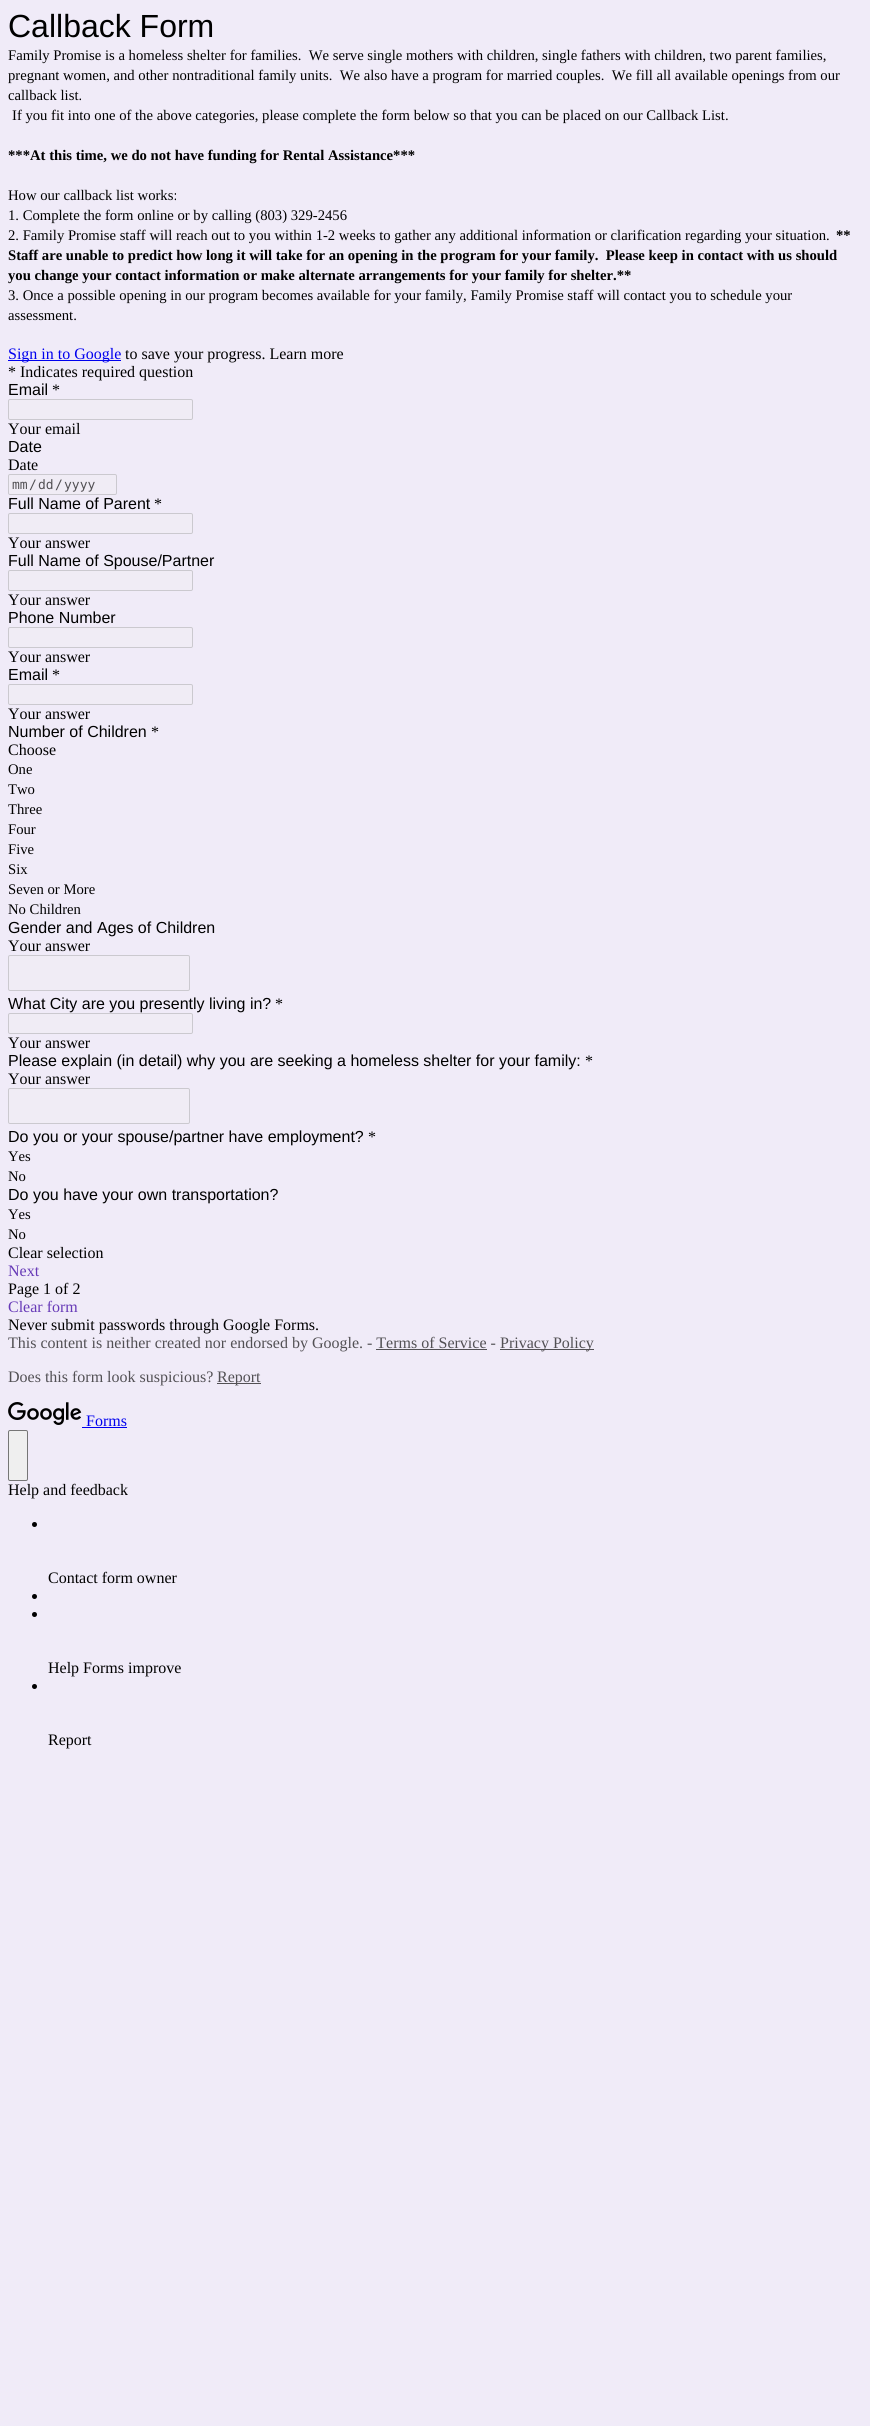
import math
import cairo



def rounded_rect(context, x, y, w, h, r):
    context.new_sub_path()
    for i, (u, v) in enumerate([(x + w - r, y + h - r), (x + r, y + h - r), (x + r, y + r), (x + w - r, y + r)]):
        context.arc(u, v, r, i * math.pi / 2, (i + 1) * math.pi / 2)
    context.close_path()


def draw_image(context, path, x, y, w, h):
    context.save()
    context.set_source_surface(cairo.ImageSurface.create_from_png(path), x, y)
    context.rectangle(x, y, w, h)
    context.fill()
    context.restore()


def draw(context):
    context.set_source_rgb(240 / 255, 235 / 255, 248 / 255)
    context.paint()
    context.set_source_rgb(0, 0, 238 / 255)
    context.rectangle(8, 360, 113, 1)
    context.fill()
    context.set_source_rgb(240 / 255, 236 / 255, 245 / 255)
    rounded_rect(context, 8.5, 399.5, 184, 20, 1.5)
    context.fill_preserve()
    context.set_source_rgb(203 / 255, 201 / 255, 207 / 255)
    context.set_line_width(1)
    context.stroke()
    context.set_source_rgb(240 / 255, 236 / 255, 245 / 255)
    rounded_rect(context, 8.5, 474.5, 108, 20, 1.5)
    context.fill_preserve()
    context.set_source_rgb(203 / 255, 201 / 255, 207 / 255)
    context.stroke()
    context.set_source_rgb(240 / 255, 236 / 255, 245 / 255)
    rounded_rect(context, 8.5, 513.5, 184, 20, 1.5)
    context.fill_preserve()
    context.set_source_rgb(203 / 255, 201 / 255, 207 / 255)
    context.stroke()
    context.set_source_rgb(240 / 255, 236 / 255, 245 / 255)
    rounded_rect(context, 8.5, 570.5, 184, 20, 1.5)
    context.fill_preserve()
    context.set_source_rgb(203 / 255, 201 / 255, 207 / 255)
    context.stroke()
    context.set_source_rgb(240 / 255, 236 / 255, 245 / 255)
    rounded_rect(context, 8.5, 627.5, 184, 20, 1.5)
    context.fill_preserve()
    context.set_source_rgb(203 / 255, 201 / 255, 207 / 255)
    context.stroke()
    context.set_source_rgb(240 / 255, 236 / 255, 245 / 255)
    rounded_rect(context, 8.5, 684.5, 184, 20, 1.5)
    context.fill_preserve()
    context.set_source_rgb(203 / 255, 201 / 255, 207 / 255)
    context.stroke()
    context.set_source_rgb(240 / 255, 236 / 255, 245 / 255)
    rounded_rect(context, 8.5, 955.5, 181, 35, 1.5)
    context.fill_preserve()
    context.set_source_rgb(203 / 255, 201 / 255, 207 / 255)
    context.stroke()
    context.set_source_rgb(240 / 255, 236 / 255, 245 / 255)
    rounded_rect(context, 8.5, 1013.5, 184, 20, 1.5)
    context.fill_preserve()
    context.set_source_rgb(203 / 255, 201 / 255, 207 / 255)
    context.stroke()
    context.set_source_rgb(240 / 255, 236 / 255, 245 / 255)
    rounded_rect(context, 8.5, 1088.5, 181, 35, 1.5)
    context.fill_preserve()
    context.set_source_rgb(203 / 255, 201 / 255, 207 / 255)
    context.stroke()
    context.set_source_rgb(82 / 255, 80 / 255, 84 / 255)
    context.rectangle(500, 1349, 94, 1)
    context.fill()
    context.rectangle(376, 1349, 111, 1)
    context.fill()
    context.rectangle(217, 1383, 44, 1)
    context.fill()
    draw_image(context, "images/1.png", 8, 1402, 74, 23)
    context.set_source_rgb(0, 0, 238 / 255)
    context.rectangle(82, 1427, 45, 1)
    context.fill()
    context.set_source_rgb(239 / 255, 239 / 255, 239 / 255)
    rounded_rect(context, 8.5, 1430.5, 19, 50, 1.5)
    context.fill_preserve()
    context.set_source_rgb(118 / 255, 118 / 255, 118 / 255)
    context.stroke()
    context.set_source_rgb(0, 0, 0)
    context.arc(34.5, 1524.5, 2.5, 0, 2 * math.pi)
    context.fill()
    context.arc(34.5, 1596.5, 2.5, 0, 2 * math.pi)
    context.fill()
    context.arc(34.5, 1614.5, 2.5, 0, 2 * math.pi)
    context.fill()
    context.arc(34.5, 1686.5, 2.5, 0, 2 * math.pi)
    context.fill()
    context.select_font_face("Liberation Sans")
    context.set_font_size(32)
    context.move_to(8, 37)
    context.show_text("Callback Form")
    context.select_font_face("Liberation Serif")
    context.set_font_size(14.67)
    context.move_to(8, 60)
    context.show_text("Family Promise is a homeless shelter for families.  We serve single mothers with children, single fathers with children, two parent families,")
    context.move_to(8, 80)
    context.show_text("pregnant women, and other nontraditional family units.  We also have a program for married couples.  We fill all available openings from our")
    context.move_to(8, 100)
    context.show_text("callback list.")
    context.move_to(12, 120)
    context.show_text("If you fit into one of the above categories, please complete the form below so that you can be placed on our Callback List.")
    context.select_font_face("Liberation Serif", cairo.FontSlant.NORMAL, cairo.FontWeight.BOLD)
    context.move_to(8, 160)
    context.show_text("***At this time, we do not have funding for Rental Assistance***")
    context.select_font_face("Liberation Serif")
    context.move_to(8, 200)
    context.show_text("How our callback list works:")
    context.move_to(8, 220)
    context.show_text("1. Complete the form online or by calling (803) 329-2456")
    context.move_to(8, 240)
    context.show_text("2. Family Promise staff will reach out to you within 1-2 weeks to gather any additional information or clarification regarding your situation.")
    context.select_font_face("Liberation Serif", cairo.FontSlant.NORMAL, cairo.FontWeight.BOLD)
    context.move_to(836, 240)
    context.show_text("**")
    context.move_to(8, 260)
    context.show_text("Staff are unable to predict how long it will take for an opening in the program for your family.  Please keep in contact with us should")
    context.move_to(8, 280)
    context.show_text("you change your contact information or make alternate arrangements for your family for shelter.**")
    context.select_font_face("Liberation Serif")
    context.move_to(8, 300)
    context.show_text("3. Once a possible opening in our program becomes available for your family, Family Promise staff will contact you to schedule your")
    context.move_to(8, 320)
    context.show_text("assessment.")
    context.set_font_size(16)
    context.set_source_rgb(0, 0, 238 / 255)
    context.move_to(8, 359)
    context.show_text("Sign in to Google")
    context.set_source_rgb(0, 0, 0)
    context.move_to(125, 359)
    context.show_text("to save your progress. Learn more")
    context.move_to(8, 377)
    context.show_text("* Indicates required question")
    context.select_font_face("Liberation Sans")
    context.move_to(8, 395)
    context.show_text("Email")
    context.select_font_face("Liberation Serif")
    context.move_to(52, 395)
    context.show_text("*")
    context.move_to(8, 434)
    context.show_text("Your email")
    context.select_font_face("Liberation Sans")
    context.move_to(8, 452)
    context.show_text("Date")
    context.select_font_face("Liberation Serif")
    context.move_to(8, 470)
    context.show_text("Date")
    context.select_font_face("DejaVu Sans Mono")
    context.set_font_size(13)
    context.set_source_rgb(82 / 255, 80 / 255, 84 / 255)
    context.move_to(12, 489)
    context.show_text("mm")
    context.move_to(29, 489)
    context.show_text("/")
    context.move_to(38, 489)
    context.show_text("dd")
    context.move_to(55, 489)
    context.show_text("/")
    context.move_to(64, 489)
    context.show_text("yyyy")
    context.select_font_face("Liberation Sans")
    context.set_font_size(16)
    context.set_source_rgb(0, 0, 0)
    context.move_to(8, 509)
    context.show_text("Full Name of Parent")
    context.select_font_face("Liberation Serif")
    context.move_to(154, 509)
    context.show_text("*")
    context.move_to(8, 548)
    context.show_text("Your answer")
    context.select_font_face("Liberation Sans")
    context.move_to(8, 566)
    context.show_text("Full Name of Spouse/Partner")
    context.select_font_face("Liberation Serif")
    context.move_to(8, 605)
    context.show_text("Your answer")
    context.select_font_face("Liberation Sans")
    context.move_to(8, 623)
    context.show_text("Phone Number")
    context.select_font_face("Liberation Serif")
    context.move_to(8, 662)
    context.show_text("Your answer")
    context.select_font_face("Liberation Sans")
    context.move_to(8, 680)
    context.show_text("Email")
    context.select_font_face("Liberation Serif")
    context.move_to(52, 680)
    context.show_text("*")
    context.move_to(8, 719)
    context.show_text("Your answer")
    context.select_font_face("Liberation Sans")
    context.move_to(8, 737)
    context.show_text("Number of Children")
    context.select_font_face("Liberation Serif")
    context.move_to(151, 737)
    context.show_text("*")
    context.move_to(8, 755)
    context.show_text("Choose")
    context.set_font_size(14.67)
    context.move_to(8, 774)
    context.show_text("One")
    context.move_to(8, 794)
    context.show_text("Two")
    context.move_to(8, 814)
    context.show_text("Three")
    context.move_to(8, 834)
    context.show_text("Four")
    context.move_to(8, 854)
    context.show_text("Five")
    context.move_to(8, 874)
    context.show_text("Six")
    context.move_to(8, 894)
    context.show_text("Seven or More")
    context.move_to(8, 914)
    context.show_text("No Children")
    context.select_font_face("Liberation Sans")
    context.set_font_size(16)
    context.move_to(8, 933)
    context.show_text("Gender and Ages of Children")
    context.select_font_face("Liberation Serif")
    context.move_to(8, 951)
    context.show_text("Your answer")
    context.select_font_face("Liberation Sans")
    context.move_to(8, 1009)
    context.show_text("What City are you presently living in?")
    context.select_font_face("Liberation Serif")
    context.move_to(275, 1009)
    context.show_text("*")
    context.move_to(8, 1048)
    context.show_text("Your answer")
    context.select_font_face("Liberation Sans")
    context.move_to(8, 1066)
    context.show_text("Please explain (in detail) why you are seeking a homeless shelter for your family:")
    context.select_font_face("Liberation Serif")
    context.move_to(585, 1066)
    context.show_text("*")
    context.move_to(8, 1084)
    context.show_text("Your answer")
    context.select_font_face("Liberation Sans")
    context.move_to(8, 1142)
    context.show_text("Do you or your spouse/partner have employment?")
    context.select_font_face("Liberation Serif")
    context.move_to(368, 1142)
    context.show_text("*")
    context.set_font_size(14.67)
    context.move_to(8, 1161)
    context.show_text("Yes")
    context.move_to(8, 1181)
    context.show_text("No")
    context.select_font_face("Liberation Sans")
    context.set_font_size(16)
    context.move_to(8, 1200)
    context.show_text("Do you have your own transportation?")
    context.select_font_face("Liberation Serif")
    context.set_font_size(14.67)
    context.move_to(8, 1219)
    context.show_text("Yes")
    context.move_to(8, 1239)
    context.show_text("No")
    context.set_font_size(16)
    context.move_to(8, 1258)
    context.show_text("Clear selection")
    context.set_source_rgb(103 / 255, 58 / 255, 183 / 255)
    context.move_to(8, 1276)
    context.show_text("Next")
    context.set_source_rgb(0, 0, 0)
    context.move_to(8, 1294)
    context.show_text("Page 1 of 2")
    context.set_source_rgb(103 / 255, 58 / 255, 183 / 255)
    context.move_to(8, 1312)
    context.show_text("Clear form")
    context.set_source_rgb(0, 0, 0)
    context.move_to(8, 1330)
    context.show_text("Never submit passwords through Google Forms.")
    context.set_source_rgb(82 / 255, 80 / 255, 84 / 255)
    context.move_to(8, 1348)
    context.show_text("This content is neither created nor endorsed by Google. - Terms of Service -")
    context.move_to(500, 1348)
    context.show_text("Privacy Policy")
    context.move_to(8, 1382)
    context.show_text("Does this form look suspicious?")
    context.move_to(217, 1382)
    context.show_text("Report")
    context.set_source_rgb(0, 0, 238 / 255)
    context.move_to(86, 1426)
    context.show_text("Forms")
    context.set_source_rgb(0, 0, 0)
    context.move_to(8, 1495)
    context.show_text("Help and feedback")
    context.move_to(48, 1583)
    context.show_text("Contact form owner")
    context.move_to(48, 1673)
    context.show_text("Help Forms improve")
    context.move_to(48, 1745)
    context.show_text("Report")


surface = cairo.ImageSurface(cairo.Format.RGB24, 870, 2426)
context = cairo.Context(surface)
options = cairo.FontOptions()
options.set_hint_metrics(cairo.HintMetrics.OFF)
options.set_hint_style(cairo.HintStyle.NONE)
context.set_font_options(options)
context.set_miter_limit(4)
draw(context)
surface.write_to_png("out.png")
